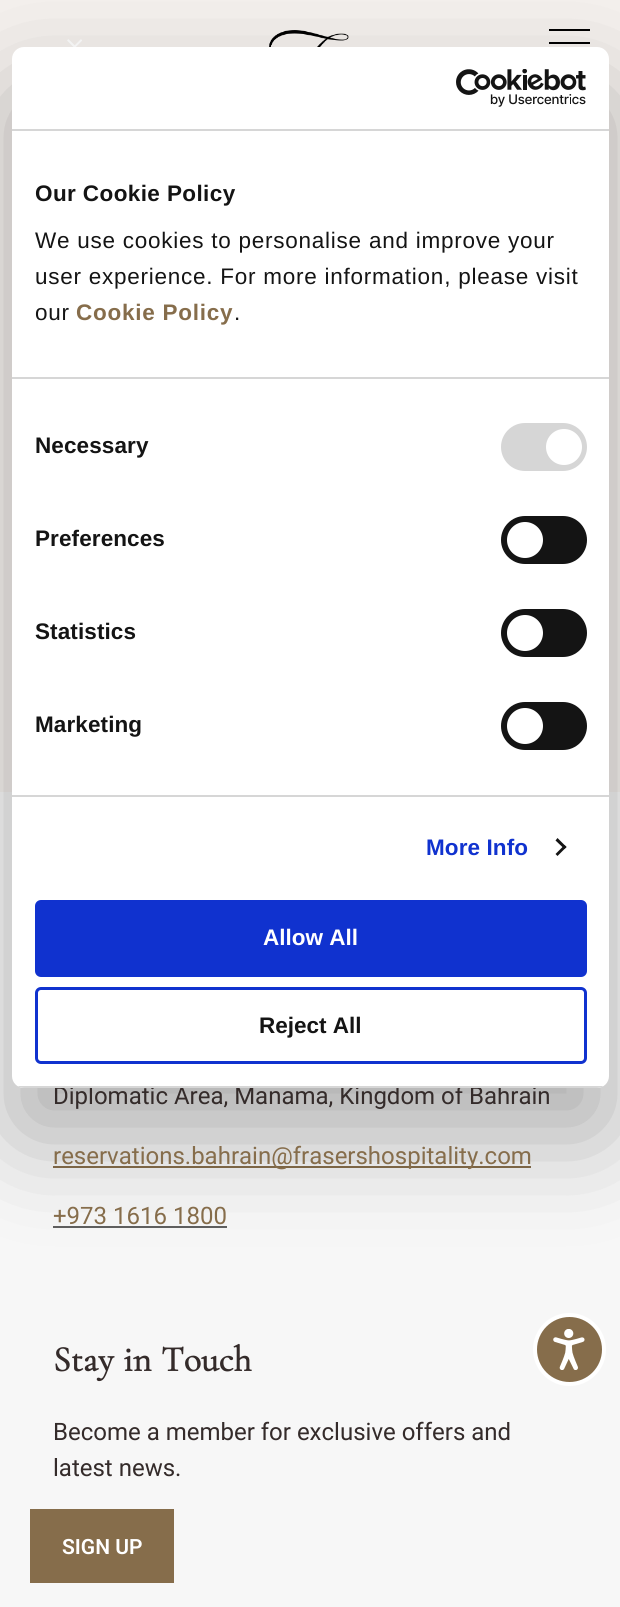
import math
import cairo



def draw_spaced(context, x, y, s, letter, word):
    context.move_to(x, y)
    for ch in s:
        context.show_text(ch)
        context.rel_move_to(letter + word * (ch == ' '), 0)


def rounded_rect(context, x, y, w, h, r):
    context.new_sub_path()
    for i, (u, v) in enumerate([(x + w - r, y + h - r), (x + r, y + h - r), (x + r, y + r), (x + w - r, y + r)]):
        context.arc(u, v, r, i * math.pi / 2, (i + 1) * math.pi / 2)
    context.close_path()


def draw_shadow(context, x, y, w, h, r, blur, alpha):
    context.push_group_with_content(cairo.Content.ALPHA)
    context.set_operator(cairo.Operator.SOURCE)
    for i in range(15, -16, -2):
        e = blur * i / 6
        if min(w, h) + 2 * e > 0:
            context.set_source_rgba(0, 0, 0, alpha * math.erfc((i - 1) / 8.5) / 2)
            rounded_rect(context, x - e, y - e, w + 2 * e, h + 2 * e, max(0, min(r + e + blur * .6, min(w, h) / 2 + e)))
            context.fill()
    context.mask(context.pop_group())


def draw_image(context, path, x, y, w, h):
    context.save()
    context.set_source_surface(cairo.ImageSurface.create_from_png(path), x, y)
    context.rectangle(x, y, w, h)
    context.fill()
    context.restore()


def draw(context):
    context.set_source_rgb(244 / 255, 240 / 255, 237 / 255)
    context.paint()
    draw_image(context, "images/2.png", 67, 39, 15, 8)
    draw_image(context, "images/3.png", 269, 30, 80, 17)
    context.set_source_rgb(0, 0, 0)
    context.rectangle(549, 29, 41, 2)
    context.fill()
    context.rectangle(549, 42, 41, 2)
    context.fill()
    context.set_source_rgb(247 / 255, 247 / 255, 247 / 255)
    context.rectangle(0, 792, 620, 815)
    context.fill()
    context.set_source_rgb(134 / 255, 109 / 255, 75 / 255)
    context.rectangle(53, 1166, 478, 2)
    context.fill()
    context.set_source_rgb(95 / 255, 95 / 255, 95 / 255)
    context.rectangle(53, 1226, 174, 2)
    context.fill()
    context.set_source_rgb(0, 0, 0)
    draw_shadow(context, 12, 95, 597, 1041, 12, 51, 0.3)
    context.set_source_rgb(134 / 255, 109 / 255, 75 / 255)
    context.rectangle(30, 1509, 144, 74)
    context.fill()
    context.arc(569.5, 1349.5, 34.5, 0, 2 * math.pi)
    context.fill_preserve()
    context.set_source_rgb(1, 1, 1)
    context.set_line_width(4)
    context.stroke()
    draw_image(context, "images/4.png", 553, 1329, 32, 41)
    context.select_font_face("Roboto")
    context.set_font_size(24)
    context.set_source_rgb(52 / 255, 43 / 255, 42 / 255)
    context.move_to(53, 1104)
    context.show_text("Diplomatic Area, Manama, Kingdom of Bahrain")
    context.set_source_rgb(1, 1, 1)
    rounded_rect(context, 12, 47, 597, 1041, 12)
    context.fill()
    rounded_rect(context, 36.5, 988.5, 549, 74, 4.5)
    context.set_source_rgb(16 / 255, 50 / 255, 207 / 255)
    context.set_line_width(3)
    context.stroke()
    context.select_font_face("Liberation Sans", cairo.FontSlant.NORMAL, cairo.FontWeight.BOLD)
    context.set_font_size(22.5)
    context.set_source_rgb(20 / 255, 20 / 255, 20 / 255)
    context.move_to(259, 1033)
    context.show_text("Reject All")
    context.set_source_rgb(16 / 255, 50 / 255, 207 / 255)
    rounded_rect(context, 36.5, 901.5, 549, 74, 4.5)
    context.fill_preserve()
    context.stroke()
    context.set_source_rgb(1, 1, 1)
    context.move_to(263, 945)
    context.show_text("Allow All")
    context.save()
    rounded_rect(context, 12, 47, 597, 1041, 12)
    context.clip()
    context.set_source_rgb(214 / 255, 214 / 255, 214 / 255)
    context.rectangle(12, 1086, 597, 2)
    context.fill()
    context.restore()
    context.set_source_rgb(20 / 255, 20 / 255, 20 / 255)
    context.new_path()
    context.move_to(557.5, 838)
    context.line_to(566.5, 847)
    context.line_to(564.5, 849)
    context.line_to(555.5, 840.5)
    context.close_path()
    context.fill()
    context.new_path()
    context.move_to(564.5, 845)
    context.line_to(566.5, 847)
    context.line_to(557.5, 856)
    context.line_to(555.5, 854)
    context.close_path()
    context.fill()
    rounded_rect(context, 501, 702, 86, 48, 24)
    context.fill()
    context.set_source_rgb(1, 1, 1)
    context.arc(525, 726, 18, 0, 2 * math.pi)
    context.fill()
    context.set_source_rgb(20 / 255, 20 / 255, 20 / 255)
    rounded_rect(context, 501, 609, 86, 48, 24)
    context.fill()
    context.set_source_rgb(1, 1, 1)
    context.arc(525, 633, 18, 0, 2 * math.pi)
    context.fill()
    context.set_source_rgb(20 / 255, 20 / 255, 20 / 255)
    rounded_rect(context, 501, 516, 86, 48, 24)
    context.fill()
    context.set_source_rgb(1, 1, 1)
    context.arc(525, 540, 18, 0, 2 * math.pi)
    context.fill()
    context.set_source_rgb(214 / 255, 214 / 255, 214 / 255)
    rounded_rect(context, 501, 423, 86, 48, 24)
    context.fill()
    context.set_source_rgb(1, 1, 1)
    context.arc(564, 447, 18, 0, 2 * math.pi)
    context.fill()
    context.select_font_face("Liberation Sans")
    context.set_source_rgb(20 / 255, 20 / 255, 20 / 255)
    draw_spaced(context, 234, 320, ".", 0.75, 0)
    context.select_font_face("Liberation Sans", cairo.FontSlant.NORMAL, cairo.FontWeight.BOLD)
    context.set_source_rgb(134 / 255, 109 / 255, 75 / 255)
    draw_spaced(context, 76, 320, "Cookie Policy", 0.75, 0)
    context.select_font_face("Liberation Sans")
    context.set_source_rgb(20 / 255, 20 / 255, 20 / 255)
    draw_spaced(context, 35, 320, "our", 0.75, 0)
    draw_spaced(context, 35, 284, "user experience. For more information, please visit", 0.75, 0)
    draw_spaced(context, 35, 248, "We use cookies to personalise and improve your", 0.75, 0)
    context.select_font_face("Liberation Sans", cairo.FontSlant.NORMAL, cairo.FontWeight.BOLD)
    draw_spaced(context, 35, 201, "Our Cookie Policy", 0.4, 0)
    context.set_source_rgb(214 / 255, 214 / 255, 214 / 255)
    context.rectangle(12, 377, 597, 2)
    context.fill()
    context.set_source_rgb(16 / 255, 50 / 255, 207 / 255)
    draw_spaced(context, 426, 855, "More Info", 0.1, 0)
    context.set_source_rgb(20 / 255, 20 / 255, 20 / 255)
    draw_spaced(context, 35, 732, "Marketing", 0.1, 0)
    draw_spaced(context, 35, 639, "Statistics", 0.1, 0)
    draw_spaced(context, 35, 546, "Preferences", 0.1, 0)
    draw_spaced(context, 35, 453, "Necessary", 0.1, 0)
    context.set_source_rgb(214 / 255, 214 / 255, 214 / 255)
    context.rectangle(12, 795, 597, 2)
    context.fill()
    draw_image(context, "images/1.png", 456, 69, 130, 38)
    context.rectangle(12, 129, 597, 2)
    context.fill()
    context.select_font_face("Roboto")
    context.set_font_size(24)
    context.set_source_rgb(134 / 255, 109 / 255, 75 / 255)
    context.move_to(53, 1164)
    context.show_text("reservations.bahrain@frasershospitality.com")
    context.move_to(53, 1224)
    context.show_text("+973 1616 1800")
    context.select_font_face("Cormorant Garamond", cairo.FontSlant.NORMAL, cairo.FontWeight.BOLD)
    context.set_font_size(36)
    context.set_source_rgb(52 / 255, 43 / 255, 42 / 255)
    draw_spaced(context, 53, 1371, "Stay in Touch", 0, 1)
    context.select_font_face("Roboto")
    context.set_font_size(24)
    context.move_to(53, 1440)
    context.show_text("Become a member for exclusive offers and")
    context.move_to(53, 1476)
    context.show_text("latest news.")
    context.select_font_face("Roboto SemiBold")
    context.set_font_size(21)
    context.set_source_rgb(1, 1, 1)
    context.move_to(62, 1554)
    context.show_text("SIGN UP")


surface = cairo.ImageSurface(cairo.Format.RGB24, 620, 1607)
context = cairo.Context(surface)
options = cairo.FontOptions()
options.set_hint_metrics(cairo.HintMetrics.OFF)
options.set_hint_style(cairo.HintStyle.NONE)
context.set_font_options(options)
context.set_miter_limit(4)
draw(context)
surface.write_to_png("out.png")
